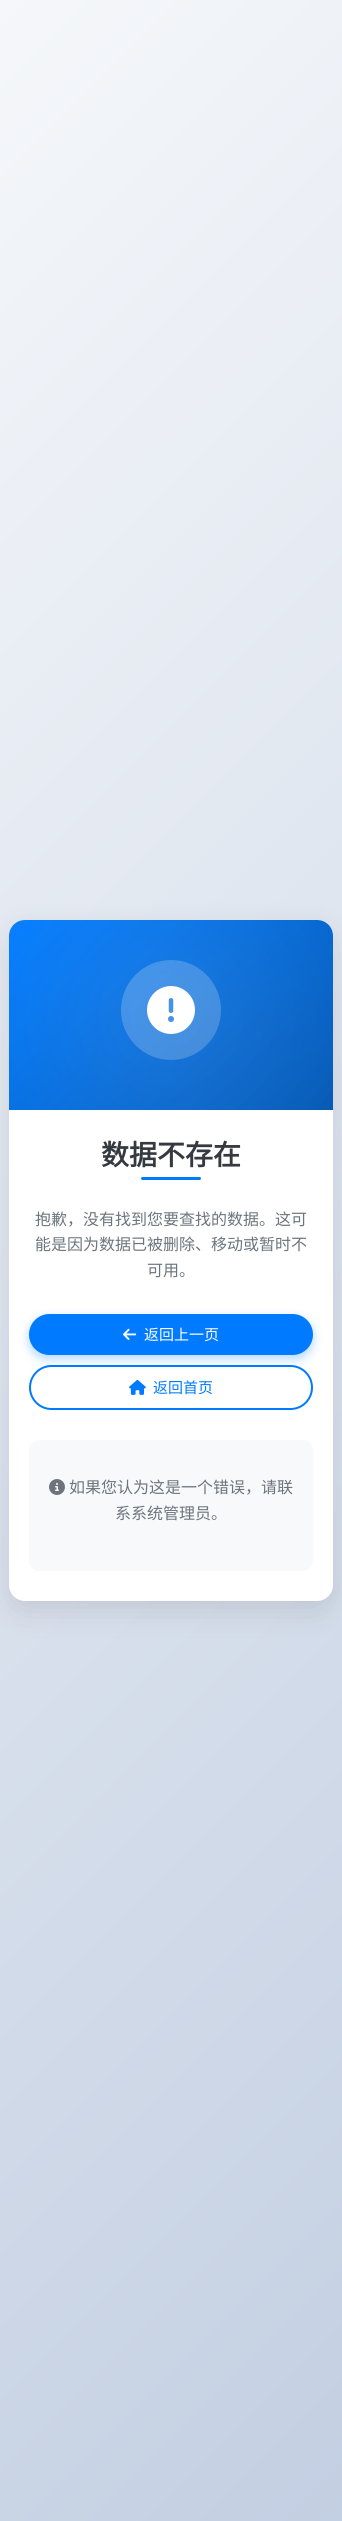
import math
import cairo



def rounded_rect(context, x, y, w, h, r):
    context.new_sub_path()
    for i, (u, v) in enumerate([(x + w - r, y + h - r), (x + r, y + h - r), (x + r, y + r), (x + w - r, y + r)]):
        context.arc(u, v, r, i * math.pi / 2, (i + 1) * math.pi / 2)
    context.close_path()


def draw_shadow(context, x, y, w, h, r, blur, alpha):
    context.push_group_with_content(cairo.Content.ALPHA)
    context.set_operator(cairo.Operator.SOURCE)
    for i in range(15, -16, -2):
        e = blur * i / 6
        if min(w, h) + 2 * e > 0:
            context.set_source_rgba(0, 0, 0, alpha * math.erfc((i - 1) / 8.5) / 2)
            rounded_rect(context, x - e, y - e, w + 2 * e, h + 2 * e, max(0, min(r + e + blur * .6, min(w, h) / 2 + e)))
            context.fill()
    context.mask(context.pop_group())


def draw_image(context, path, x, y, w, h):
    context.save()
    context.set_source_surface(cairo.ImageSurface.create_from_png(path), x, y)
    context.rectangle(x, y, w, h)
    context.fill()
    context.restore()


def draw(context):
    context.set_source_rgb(1, 1, 1)
    context.paint()
    gradient = cairo.LinearGradient(-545, 545, 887, 1976)
    gradient.add_color_stop_rgba(0, 245 / 255, 247 / 255, 250 / 255, 1)
    gradient.add_color_stop_rgba(1, 195 / 255, 207 / 255, 226 / 255, 1)
    context.set_source(gradient)
    context.rectangle(0, 0, 342, 2521)
    context.fill()
    context.set_source_rgb(0, 0, 0)
    draw_shadow(context, 9, 930, 324, 681, 16, 15, 0.1)
    context.set_source_rgb(1, 1, 1)
    rounded_rect(context, 9, 920, 324, 681, 16)
    context.fill()
    gradient = cairo.LinearGradient(43, 887, 300, 1144)
    gradient.add_color_stop_rgba(0, 0, 123 / 255, 1, 1)
    gradient.add_color_stop_rgba(1, 0, 86 / 255, 179 / 255, 1)
    context.set_source(gradient)
    context.new_path()
    context.move_to(25, 920)
    context.line_to(317, 920)
    context.curve_to(326, 920, 333, 927, 333, 936)
    context.line_to(333, 1110)
    context.line_to(9, 1110)
    context.line_to(9, 936)
    context.curve_to(9, 927, 16, 920, 25, 920)
    context.close_path()
    context.fill()
    context.save()
    context.rectangle(9, 920, 324, 190)
    context.clip()
    gradient = cairo.RadialGradient(171, 1015, 0, 171, 1015, 376)
    gradient.add_color_stop_rgba(0, 1, 1, 1, 0.1)
    gradient.add_color_stop_rgba(0.7, 1, 1, 1, 0)
    context.set_source(gradient)
    context.new_path()
    context.move_to(25, 920)
    context.line_to(317, 920)
    context.curve_to(326, 920, 333, 927, 333, 936)
    context.line_to(333, 1328)
    context.line_to(9, 1141)
    context.line_to(9, 936)
    context.curve_to(9, 927, 16, 920, 25, 920)
    context.close_path()
    context.fill()
    context.restore()
    context.set_source_rgba(1, 1, 1, 0.2)
    context.arc(171, 1010, 50, 0, 2 * math.pi)
    context.fill()
    draw_image(context, "images/1.png", 147, 986, 48, 48)
    context.set_source_rgb(0, 123 / 255, 1)
    rounded_rect(context, 141, 1177, 60, 3, 1.5)
    context.fill()
    context.set_source_rgb(0, 123 / 255, 1)
    draw_shadow(context, 29, 1318, 284, 41, 20.5, 5, 0.3)
    context.set_source_rgb(0, 123 / 255, 1)
    rounded_rect(context, 29, 1314, 284, 41, 20.5)
    context.fill()
    draw_image(context, "images/2.png", 123, 1328, 14, 12)
    rounded_rect(context, 30, 1366, 282, 43, 21.5)
    context.stroke()
    draw_image(context, "images/3.png", 129, 1379, 17, 16)
    context.set_source_rgb(248 / 255, 249 / 255, 250 / 255)
    rounded_rect(context, 29, 1440, 284, 131, 10)
    context.fill()
    draw_image(context, "images/4.png", 49, 1479, 16, 16)
    context.select_font_face("Noto Sans CJK SC", cairo.FontSlant.NORMAL, cairo.FontWeight.BOLD)
    context.set_font_size(28)
    context.set_source_rgb(52 / 255, 58 / 255, 64 / 255)
    context.move_to(101, 1165)
    context.show_text("数据不存在")
    context.select_font_face("Noto Sans CJK SC")
    context.set_font_size(16)
    context.set_source_rgb(108 / 255, 117 / 255, 125 / 255)
    context.move_to(35, 1225)
    context.show_text("抱歉，没有找到您要查找的数据。这可")
    context.move_to(35, 1250)
    context.show_text("能是因为数据已被删除、移动或暂时不")
    context.move_to(147, 1276)
    context.show_text("可用。")
    context.set_font_size(15)
    context.set_source_rgb(1, 1, 1)
    context.move_to(144, 1340)
    context.show_text("返回上一页")
    context.set_source_rgb(0, 123 / 255, 1)
    context.move_to(153, 1393)
    context.show_text("返回首页")
    context.set_font_size(16)
    context.set_source_rgb(108 / 255, 117 / 255, 125 / 255)
    context.move_to(69, 1493)
    context.show_text("如果您认为这是一个错误，请联")
    context.move_to(115, 1519)
    context.show_text("系系统管理员。")


surface = cairo.ImageSurface(cairo.Format.RGB24, 342, 2521)
context = cairo.Context(surface)
options = cairo.FontOptions()
options.set_hint_metrics(cairo.HintMetrics.OFF)
options.set_hint_style(cairo.HintStyle.NONE)
context.set_font_options(options)
context.set_miter_limit(4)
draw(context)
surface.write_to_png("out.png")
